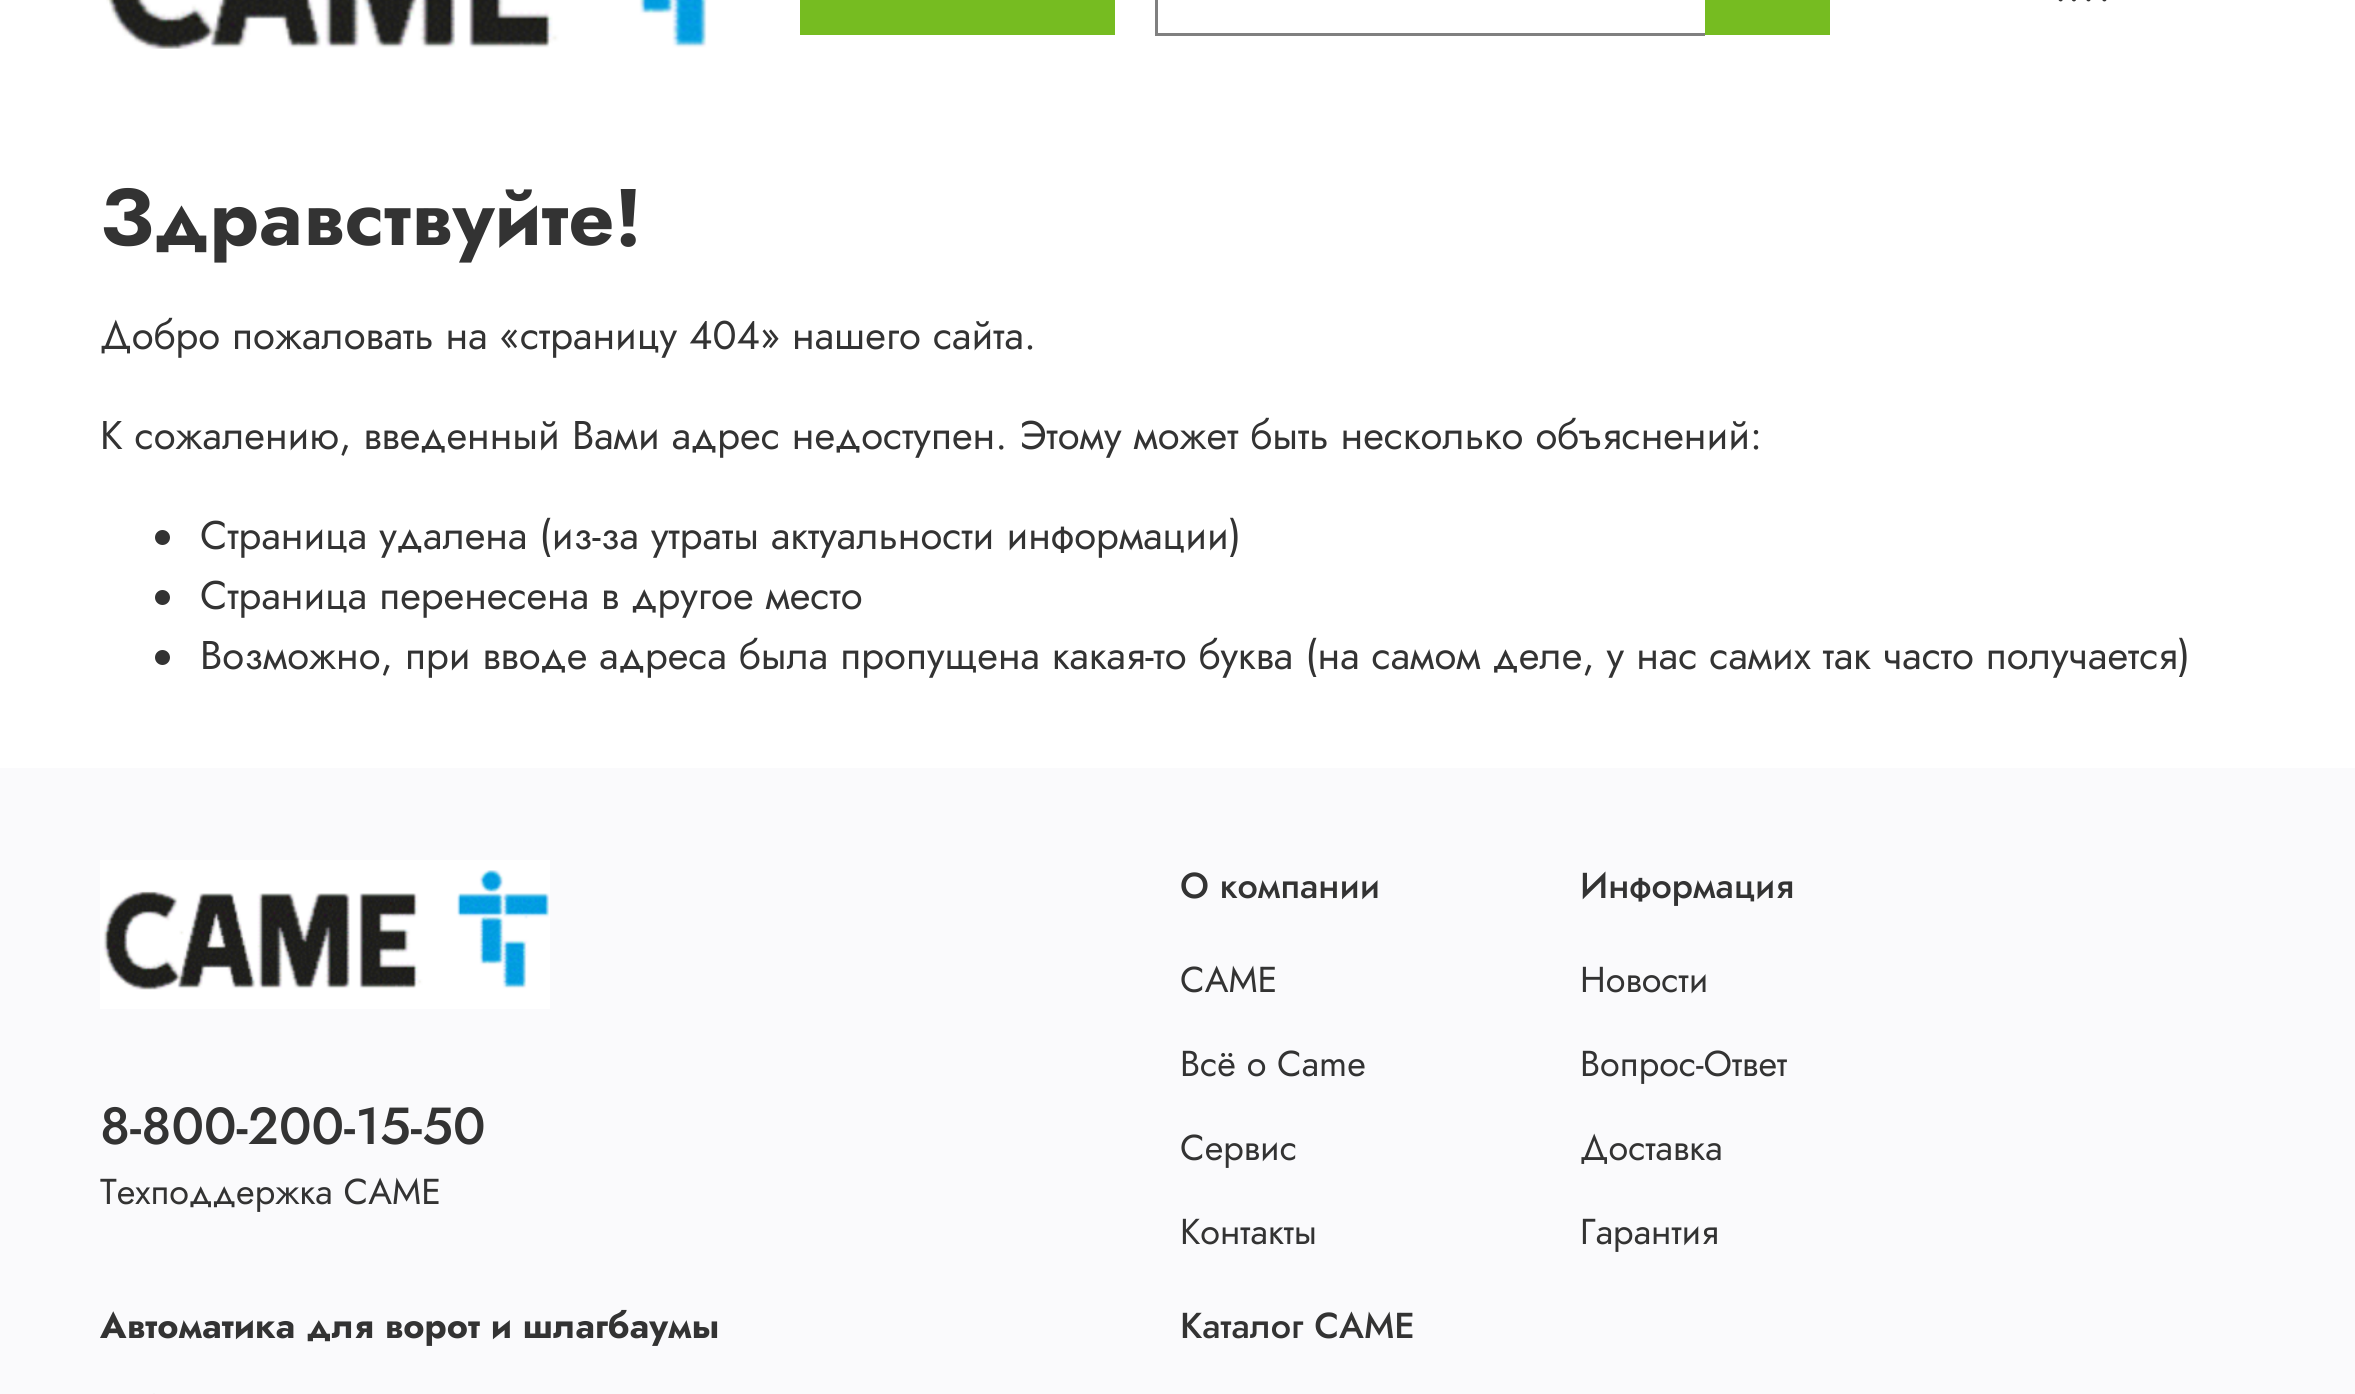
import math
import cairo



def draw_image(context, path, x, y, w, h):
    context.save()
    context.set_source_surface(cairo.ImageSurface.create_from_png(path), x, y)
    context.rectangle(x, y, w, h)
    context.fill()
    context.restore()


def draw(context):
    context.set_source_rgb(1, 1, 1)
    context.paint()
    draw_image(context, "images/1.png", 106, 0, 602, 49)
    context.set_source_rgb(118 / 255, 188 / 255, 33 / 255)
    context.rectangle(800, 0, 315, 35)
    context.fill()
    context.set_source_rgb(128 / 255, 128 / 255, 128 / 255)
    context.rectangle(1155, 33, 550, 3)
    context.fill()
    context.rectangle(1155, 0, 3, 35)
    context.fill()
    context.set_source_rgb(118 / 255, 188 / 255, 33 / 255)
    context.rectangle(1705, 0, 125, 35)
    context.fill()
    draw_image(context, "images/2.png", 2058, 0, 49, 2)
    context.set_source_rgb(51 / 255, 51 / 255, 51 / 255)
    context.arc(162.5, 537.5, 7.5, 0, 2 * math.pi)
    context.fill()
    context.arc(162.5, 597.5, 7.5, 0, 2 * math.pi)
    context.fill()
    context.arc(162.5, 657.5, 7.5, 0, 2 * math.pi)
    context.fill()
    context.set_source_rgb(250 / 255, 250 / 255, 252 / 255)
    context.rectangle(0, 768, 2355, 626)
    context.fill()
    draw_image(context, "images/3.png", 100, 860, 450, 149)
    context.set_source_rgb(246 / 255, 246 / 255, 248 / 255)
    context.rectangle(153, 1393, 2, 1)
    context.fill()
    context.select_font_face("Jost", cairo.FontSlant.NORMAL, cairo.FontWeight.BOLD)
    context.set_font_size(80)
    context.set_source_rgb(51 / 255, 51 / 255, 51 / 255)
    context.move_to(100, 245)
    context.show_text("Здравствуйте!")
    context.select_font_face("Jost")
    context.set_font_size(40)
    context.move_to(100, 349)
    context.show_text("Добро пожаловать на «страницу 404» нашего сайта.")
    context.move_to(100, 449)
    context.show_text("К сожалению, введенный Вами адрес недоступен. Этому может быть несколько объяснений:")
    context.move_to(200, 549)
    context.show_text("Страница удалена (из-за утраты актуальности информации)")
    context.move_to(200, 609)
    context.show_text("Страница перенесена в другое место")
    context.move_to(200, 669)
    context.show_text("Возможно, при вводе адреса была пропущена какая-то буква (на самом деле, у нас самих так часто получается)")
    context.select_font_face("Jost Medium")
    context.set_font_size(52)
    context.move_to(100, 1144)
    context.show_text("8-800-200-15-50")
    context.select_font_face("Jost")
    context.set_font_size(36)
    context.move_to(100, 1204)
    context.show_text("Техподдержка CAME")
    context.select_font_face("Jost", cairo.FontSlant.NORMAL, cairo.FontWeight.BOLD)
    context.move_to(100, 1338)
    context.show_text("Автоматика для ворот и шлагбаумы")
    context.select_font_face("Jost Medium")
    context.move_to(1180, 898)
    context.show_text("О компании")
    context.select_font_face("Jost")
    context.move_to(1180, 992)
    context.show_text("CAME")
    context.move_to(1180, 1076)
    context.show_text("Всё о Came")
    context.move_to(1180, 1160)
    context.show_text("Сервис")
    context.move_to(1180, 1244)
    context.show_text("Контакты")
    context.select_font_face("Jost Medium")
    context.move_to(1580, 898)
    context.show_text("Информация")
    context.select_font_face("Jost")
    context.move_to(1580, 992)
    context.show_text("Новости")
    context.move_to(1580, 1076)
    context.show_text("Вопрос-Ответ")
    context.move_to(1580, 1160)
    context.show_text("Доставка")
    context.move_to(1580, 1244)
    context.show_text("Гарантия")
    context.select_font_face("Jost Medium")
    context.move_to(1180, 1338)
    context.show_text("Каталог CAME")


surface = cairo.ImageSurface(cairo.Format.RGB24, 2355, 1394)
context = cairo.Context(surface)
options = cairo.FontOptions()
options.set_hint_metrics(cairo.HintMetrics.OFF)
options.set_hint_style(cairo.HintStyle.NONE)
context.set_font_options(options)
context.set_miter_limit(4)
draw(context)
surface.write_to_png("out.png")
